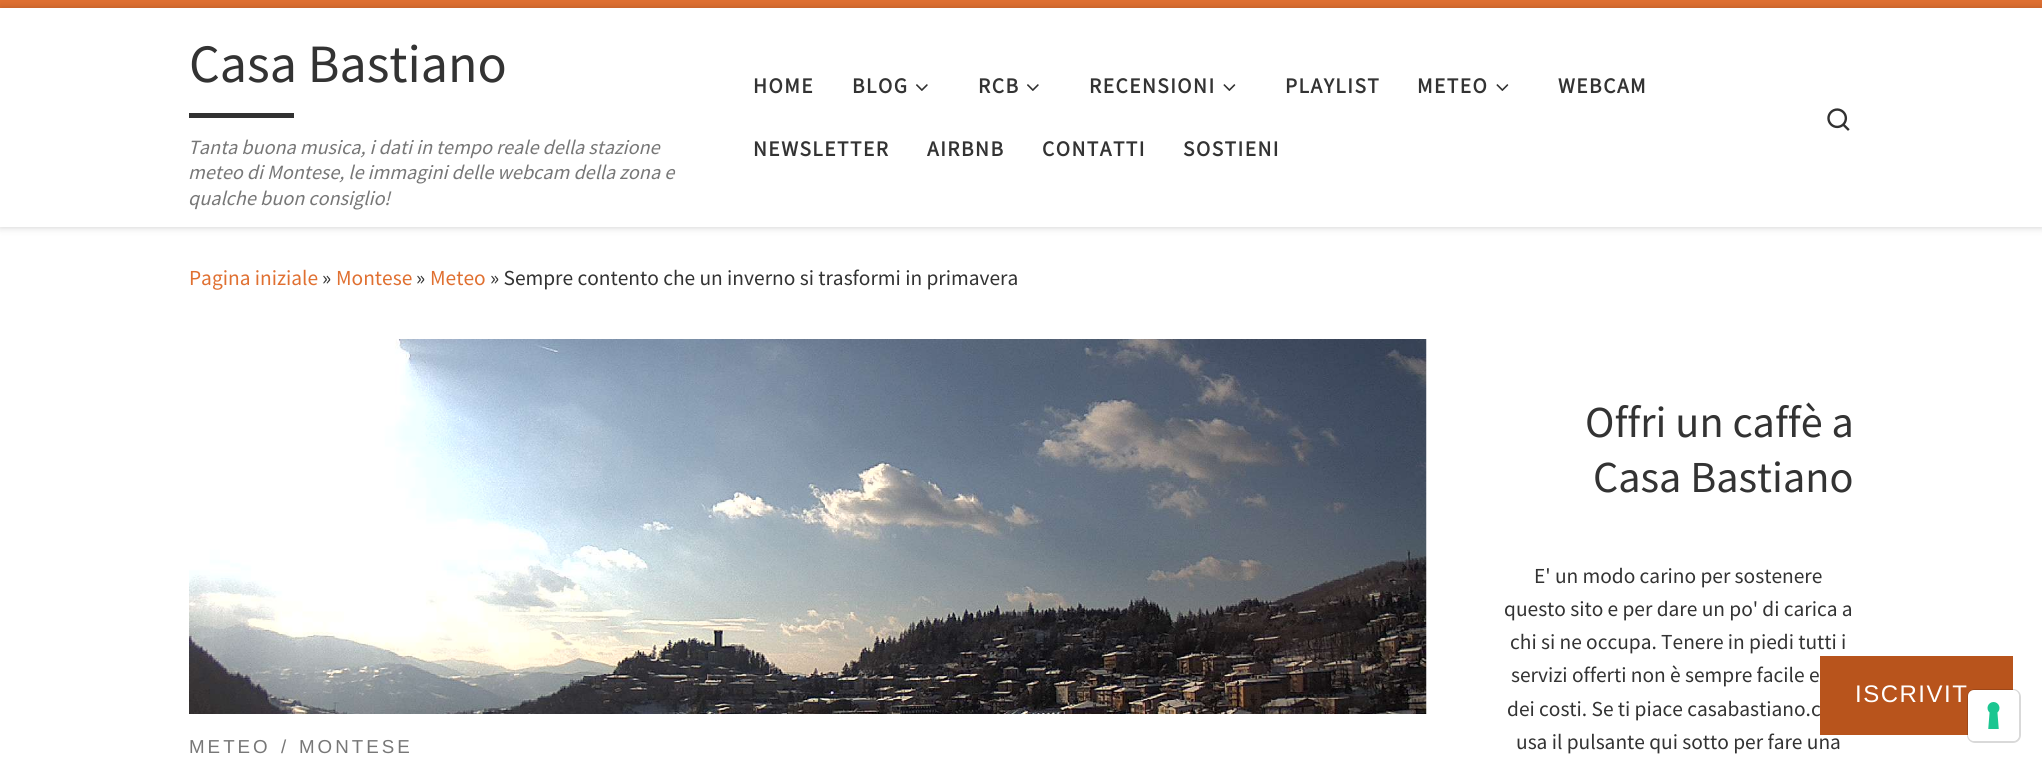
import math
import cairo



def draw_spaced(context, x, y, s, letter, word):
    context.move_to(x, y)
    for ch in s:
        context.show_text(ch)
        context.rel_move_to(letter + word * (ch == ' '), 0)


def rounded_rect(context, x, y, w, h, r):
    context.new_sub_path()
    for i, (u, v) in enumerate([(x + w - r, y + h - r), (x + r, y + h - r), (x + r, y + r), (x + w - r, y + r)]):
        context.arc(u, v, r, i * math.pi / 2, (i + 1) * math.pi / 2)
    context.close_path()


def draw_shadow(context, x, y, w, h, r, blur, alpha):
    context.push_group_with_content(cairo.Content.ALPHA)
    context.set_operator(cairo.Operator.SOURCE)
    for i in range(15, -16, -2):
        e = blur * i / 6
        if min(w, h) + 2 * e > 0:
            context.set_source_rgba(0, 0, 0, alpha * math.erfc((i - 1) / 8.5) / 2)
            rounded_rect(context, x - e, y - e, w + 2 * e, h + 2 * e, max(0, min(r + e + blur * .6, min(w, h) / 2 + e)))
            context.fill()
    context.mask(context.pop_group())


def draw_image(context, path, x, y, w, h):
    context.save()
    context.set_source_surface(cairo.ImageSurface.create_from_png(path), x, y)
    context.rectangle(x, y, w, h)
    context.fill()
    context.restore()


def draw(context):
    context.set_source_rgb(1, 1, 1)
    context.paint()
    context.set_source_rgb(224 / 255, 112 / 255, 49 / 255)
    context.rectangle(0, 0, 2042, 8)
    context.fill()
    context.set_source_rgb(0, 0, 0)
    draw_shadow(context, 0, 8, 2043, 219, 0, 4, 0.2)
    context.set_source_rgb(1, 1, 1)
    context.rectangle(0, 8, 2042, 219)
    context.fill()
    context.set_source_rgb(49 / 255, 49 / 255, 49 / 255)
    context.rectangle(189, 113, 105, 5)
    context.fill()
    draw_image(context, "images/1.png", 916, 84, 12, 7)
    draw_image(context, "images/1.png", 1027, 84, 12, 7)
    draw_image(context, "images/2.png", 1223, 84, 13, 7)
    draw_image(context, "images/2.png", 1496, 84, 13, 7)
    draw_image(context, "images/3.png", 1827, 108, 23, 23)
    draw_image(context, "images/4.png", 189, 339, 1238, 375)
    context.select_font_face("Source Sans Pro")
    context.set_font_size(54)
    context.set_source_rgb(51 / 255, 51 / 255, 51 / 255)
    context.move_to(189, 82)
    context.show_text("Casa Bastiano")
    context.select_font_face("Source Sans Pro", cairo.FontSlant.ITALIC)
    context.set_font_size(20.25)
    context.set_source_rgb(119 / 255, 119 / 255, 119 / 255)
    context.move_to(188, 154)
    context.show_text("Tanta buona musica, i dati in tempo reale della stazione")
    context.move_to(188, 179)
    context.show_text("meteo di Montese, le immagini delle webcam della zona e")
    context.move_to(188, 205)
    context.show_text("qualche buon consiglio!")
    context.select_font_face("Source Sans Pro", cairo.FontSlant.NORMAL, cairo.FontWeight.BOLD)
    context.set_font_size(21.4)
    context.set_source_rgb(51 / 255, 51 / 255, 51 / 255)
    draw_spaced(context, 753, 93, "HOME", 1.5, 0)
    draw_spaced(context, 852, 93, "BLOG", 1.5, 0)
    draw_spaced(context, 978, 93, "RCB", 1.5, 0)
    draw_spaced(context, 1089, 93, "RECENSIONI", 1.5, 0)
    draw_spaced(context, 1285, 93, "PLAYLIST", 1.5, 0)
    draw_spaced(context, 1417, 93, "METEO", 1.5, 0)
    draw_spaced(context, 1558, 93, "WEBCAM", 1.5, 0)
    draw_spaced(context, 753, 156, "NEWSLETTER", 1.5, 0)
    draw_spaced(context, 927, 156, "AIRBNB", 1.5, 0)
    draw_spaced(context, 1042, 156, "CONTATTI", 1.5, 0)
    draw_spaced(context, 1183, 156, "SOSTIENI", 1.5, 0)
    context.select_font_face("Source Sans Pro")
    context.set_source_rgb(224 / 255, 112 / 255, 49 / 255)
    context.move_to(189, 285)
    context.show_text("Pagina iniziale")
    context.set_source_rgb(51 / 255, 51 / 255, 51 / 255)
    context.move_to(322, 285)
    context.show_text("»")
    context.set_source_rgb(224 / 255, 112 / 255, 49 / 255)
    context.move_to(336, 285)
    context.show_text("Montese")
    context.set_source_rgb(51 / 255, 51 / 255, 51 / 255)
    context.move_to(416, 285)
    context.show_text("»")
    context.set_source_rgb(224 / 255, 112 / 255, 49 / 255)
    context.move_to(430, 285)
    context.show_text("Meteo")
    context.set_source_rgb(51 / 255, 51 / 255, 51 / 255)
    context.move_to(490, 285)
    context.show_text("» Sempre contento che un inverno si trasformi in primavera")
    context.select_font_face("Liberation Sans")
    context.set_font_size(18.75)
    context.set_source_rgb(119 / 255, 119 / 255, 119 / 255)
    draw_spaced(context, 189, 753, "METEO", 3, 0)
    draw_spaced(context, 281, 753, "/", 3, 0)
    draw_spaced(context, 299, 753, "MONTESE", 3, 0)
    context.select_font_face("Source Sans Pro")
    context.set_font_size(44.25)
    context.set_source_rgb(51 / 255, 51 / 255, 51 / 255)
    context.move_to(1585, 437)
    context.show_text("Offri un caffè a")
    context.move_to(1593, 492)
    context.show_text("Casa Bastiano")
    context.set_font_size(21.4)
    context.move_to(1534, 583)
    context.show_text("E' un modo carino per sostenere")
    context.move_to(1504, 616)
    context.show_text("questo sito e per dare un po' di carica a")
    context.move_to(1510, 649)
    context.show_text("chi si ne occupa. Tenere in piedi tutti i")
    context.move_to(1511, 682)
    context.show_text("servizi offerti non è sempre facile e")
    context.move_to(1507, 716)
    context.show_text("dei costi. Se ti piace casabastiano.c")
    context.move_to(1516, 749)
    context.show_text("usa il pulsante qui sotto per fare una")
    context.set_source_rgb(184 / 255, 84 / 255, 28 / 255)
    context.rectangle(1820, 656, 193, 79)
    context.fill()
    context.select_font_face("Liberation Sans")
    context.set_font_size(24)
    context.set_source_rgb(1, 1, 1)
    draw_spaced(context, 1855, 702, "ISCRIVIT", 1.5, 0)
    rounded_rect(context, 1968, 690, 52, 52, 7)
    context.set_source_rgba(0, 0, 0, 0.15)
    context.stroke()
    context.set_source_rgb(1, 1, 1)
    rounded_rect(context, 1968, 690, 51, 51, 6)
    context.fill()
    draw_image(context, "images/5.png", 1987, 702, 13, 27)


surface = cairo.ImageSurface(cairo.Format.RGB24, 2042, 765)
context = cairo.Context(surface)
options = cairo.FontOptions()
options.set_hint_metrics(cairo.HintMetrics.OFF)
options.set_hint_style(cairo.HintStyle.NONE)
context.set_font_options(options)
context.set_miter_limit(4)
draw(context)
surface.write_to_png("out.png")
